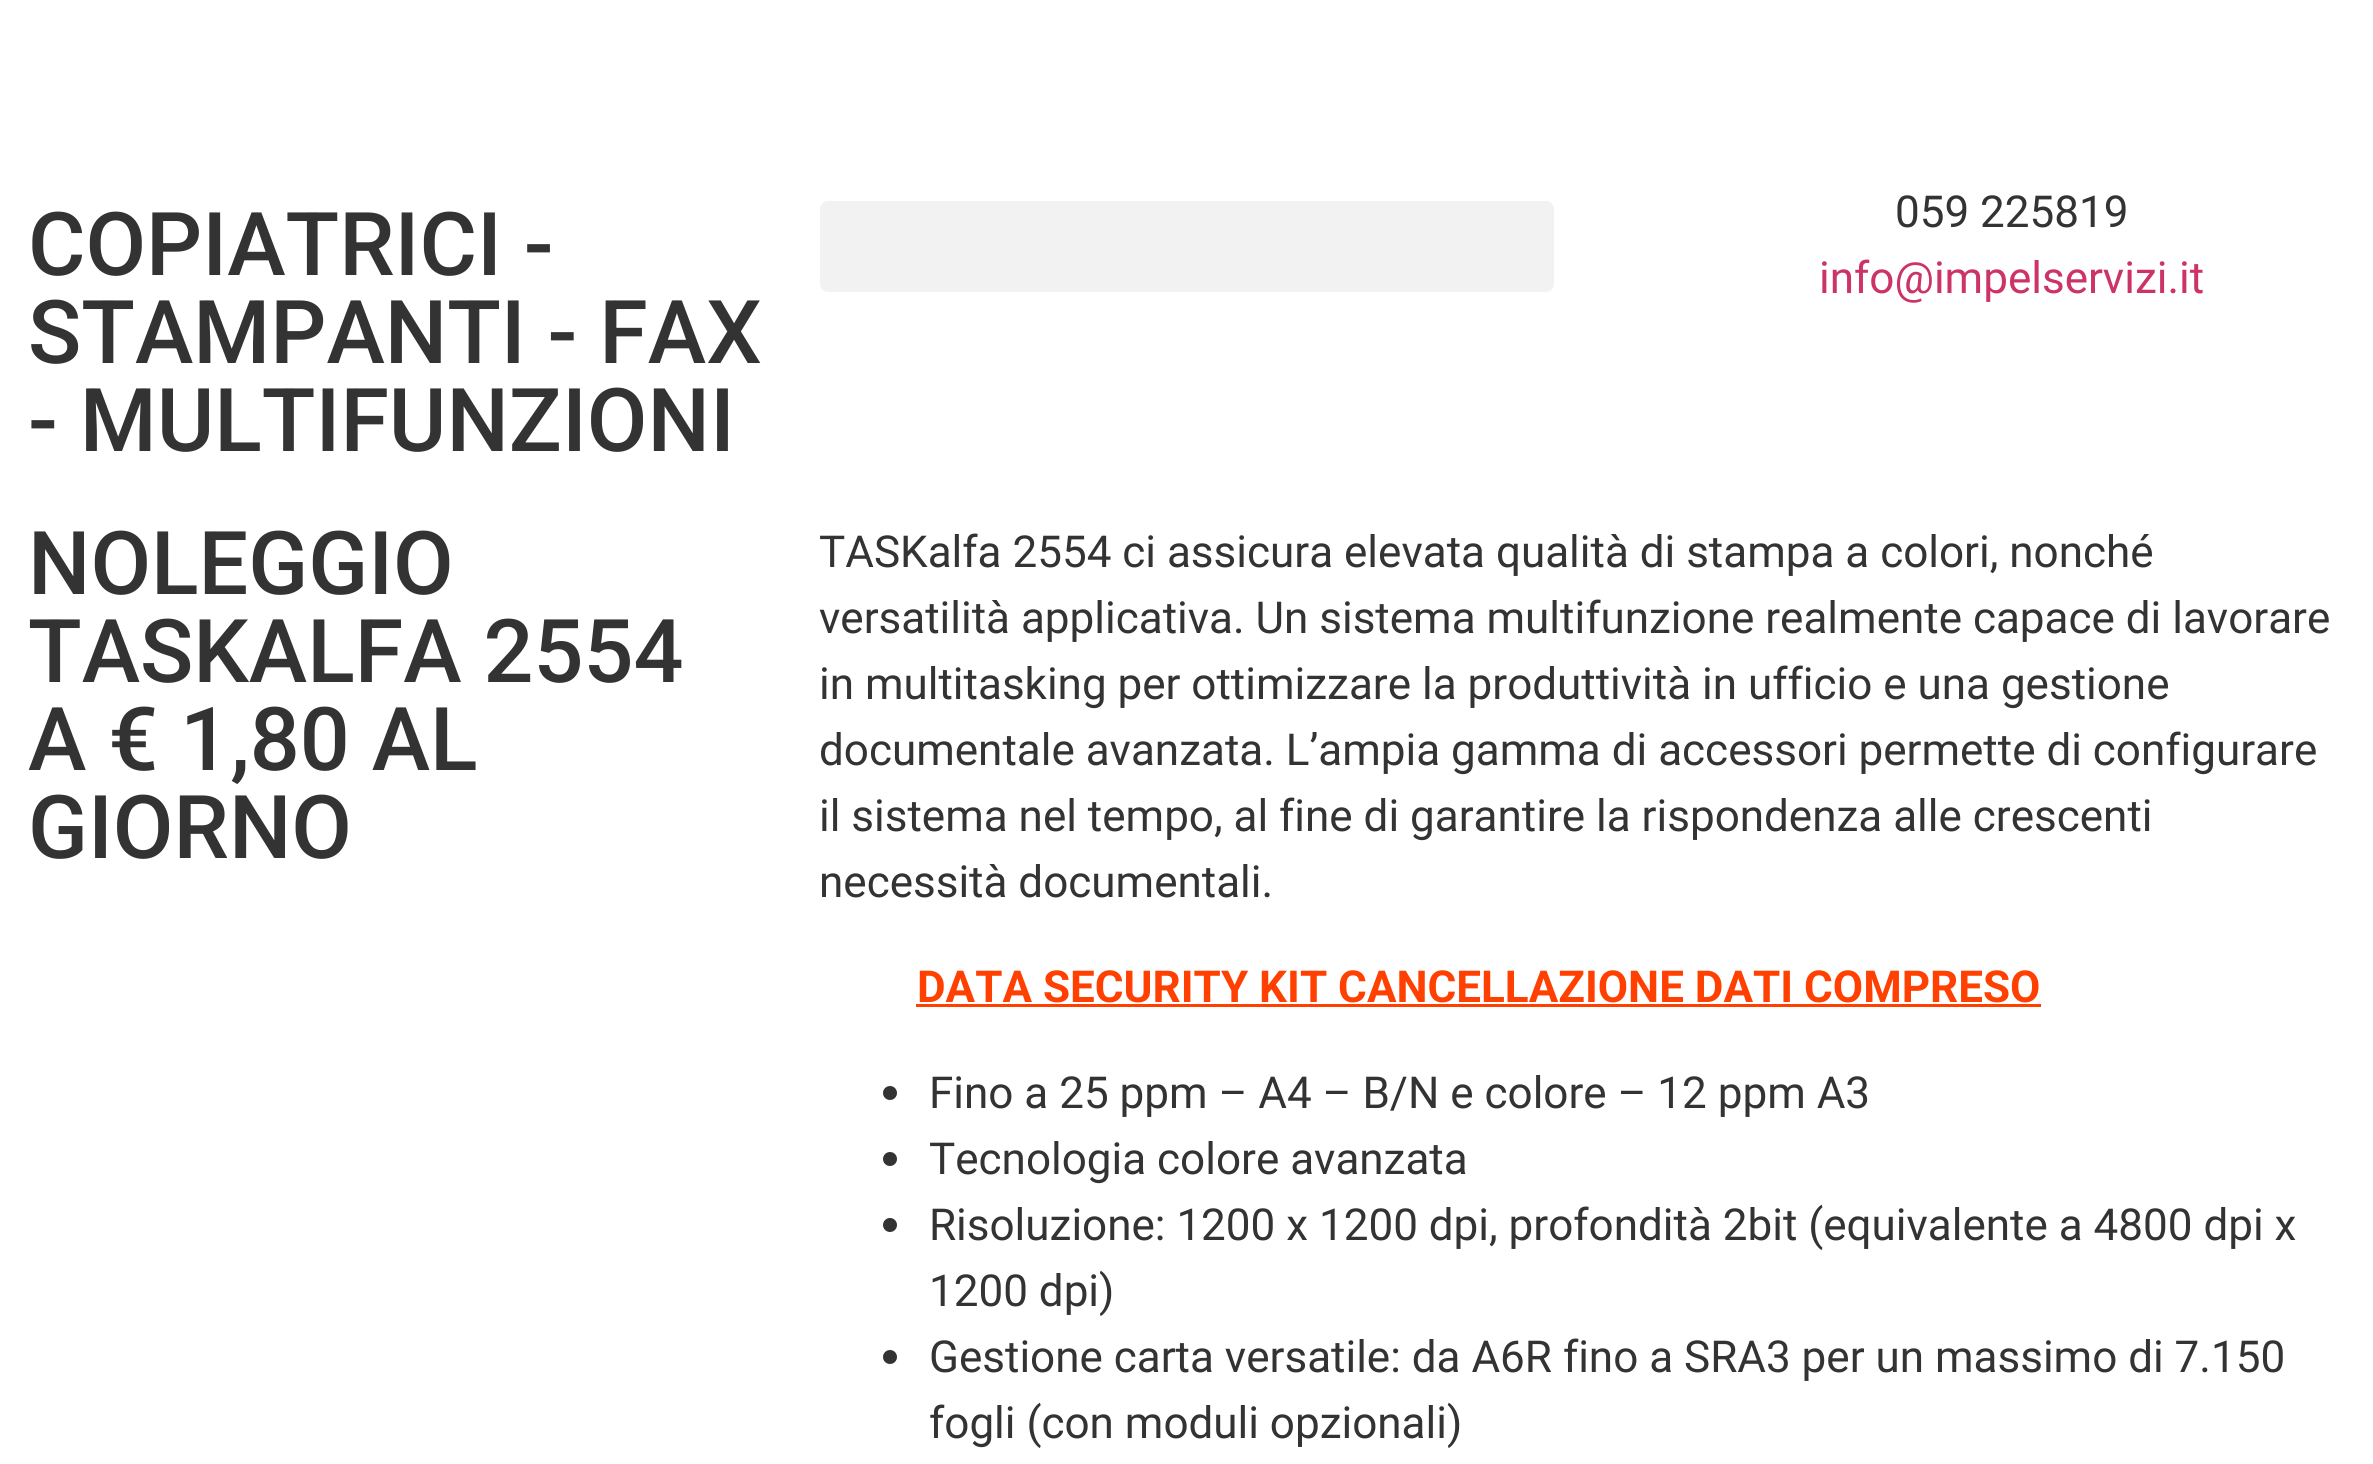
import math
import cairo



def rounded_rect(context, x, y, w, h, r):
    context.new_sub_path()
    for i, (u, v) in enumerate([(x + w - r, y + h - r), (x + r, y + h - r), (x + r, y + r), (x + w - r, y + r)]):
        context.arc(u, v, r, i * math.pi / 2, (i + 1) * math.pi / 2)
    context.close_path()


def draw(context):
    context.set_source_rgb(1, 1, 1)
    context.paint()
    context.set_source_rgb(242 / 255, 242 / 255, 242 / 255)
    rounded_rect(context, 820, 201, 734, 91, 8)
    context.fill()
    context.set_source_rgb(1, 64 / 255, 0)
    context.rectangle(916, 1004, 1125, 3)
    context.fill()
    context.set_source_rgb(51 / 255, 51 / 255, 51 / 255)
    context.arc(890, 1093, 7, 0, 2 * math.pi)
    context.fill()
    context.arc(890, 1159, 7, 0, 2 * math.pi)
    context.fill()
    context.arc(890, 1225, 7, 0, 2 * math.pi)
    context.fill()
    context.arc(890, 1357, 7, 0, 2 * math.pi)
    context.fill()
    context.select_font_face("Roboto Medium")
    context.set_font_size(88)
    context.move_to(28, 275)
    context.show_text("COPIATRICI -")
    context.move_to(28, 363)
    context.show_text("STAMPANTI - FAX")
    context.move_to(28, 451)
    context.show_text("- MULTIFUNZIONI")
    context.select_font_face("Roboto")
    context.set_font_size(44)
    context.move_to(1895, 227)
    context.show_text("059 225819")
    context.set_source_rgb(204 / 255, 51 / 255, 102 / 255)
    context.move_to(1819, 293)
    context.show_text("info@impelservizi.it")
    context.select_font_face("Roboto Medium")
    context.set_font_size(88)
    context.set_source_rgb(51 / 255, 51 / 255, 51 / 255)
    context.move_to(28, 594)
    context.show_text("NOLEGGIO")
    context.move_to(28, 682)
    context.show_text("TASKALFA 2554")
    context.move_to(28, 770)
    context.show_text("A € 1,80 AL")
    context.move_to(28, 858)
    context.show_text("GIORNO")
    context.select_font_face("Roboto")
    context.set_font_size(44)
    context.move_to(819, 567)
    context.show_text("TASKalfa 2554 ci assicura elevata qualità di stampa a colori, nonché")
    context.move_to(819, 633)
    context.show_text("versatilità applicativa. Un sistema multifunzione realmente capace di lavorare")
    context.move_to(819, 699)
    context.show_text("in multitasking per ottimizzare la produttività in ufficio e una gestione")
    context.move_to(819, 765)
    context.show_text("documentale avanzata. L’ampia gamma di accessori permette di configurare")
    context.move_to(819, 831)
    context.show_text("il sistema nel tempo, al fine di garantire la rispondenza alle crescenti")
    context.move_to(819, 897)
    context.show_text("necessità documentali.")
    context.select_font_face("Roboto", cairo.FontSlant.NORMAL, cairo.FontWeight.BOLD)
    context.set_source_rgb(1, 64 / 255, 0)
    context.move_to(917, 1002)
    context.show_text("DATA SECURITY KIT CANCELLAZIONE DATI COMPRESO")
    context.select_font_face("Roboto")
    context.set_source_rgb(51 / 255, 51 / 255, 51 / 255)
    context.move_to(929, 1108)
    context.show_text("Fino a 25 ppm – A4 – B/N e colore – 12 ppm A3")
    context.move_to(929, 1174)
    context.show_text("Tecnologia colore avanzata")
    context.move_to(929, 1240)
    context.show_text("Risoluzione: 1200 x 1200 dpi, profondità 2bit (equivalente a 4800 dpi x")
    context.move_to(929, 1306)
    context.show_text("1200 dpi)")
    context.move_to(929, 1372)
    context.show_text("Gestione carta versatile: da A6R fino a SRA3 per un massimo di 7.150")
    context.move_to(929, 1438)
    context.show_text("fogli (con moduli opzionali)")


surface = cairo.ImageSurface(cairo.Format.RGB24, 2373, 1464)
context = cairo.Context(surface)
options = cairo.FontOptions()
options.set_hint_metrics(cairo.HintMetrics.OFF)
options.set_hint_style(cairo.HintStyle.NONE)
context.set_font_options(options)
context.set_miter_limit(4)
draw(context)
surface.write_to_png("out.png")
